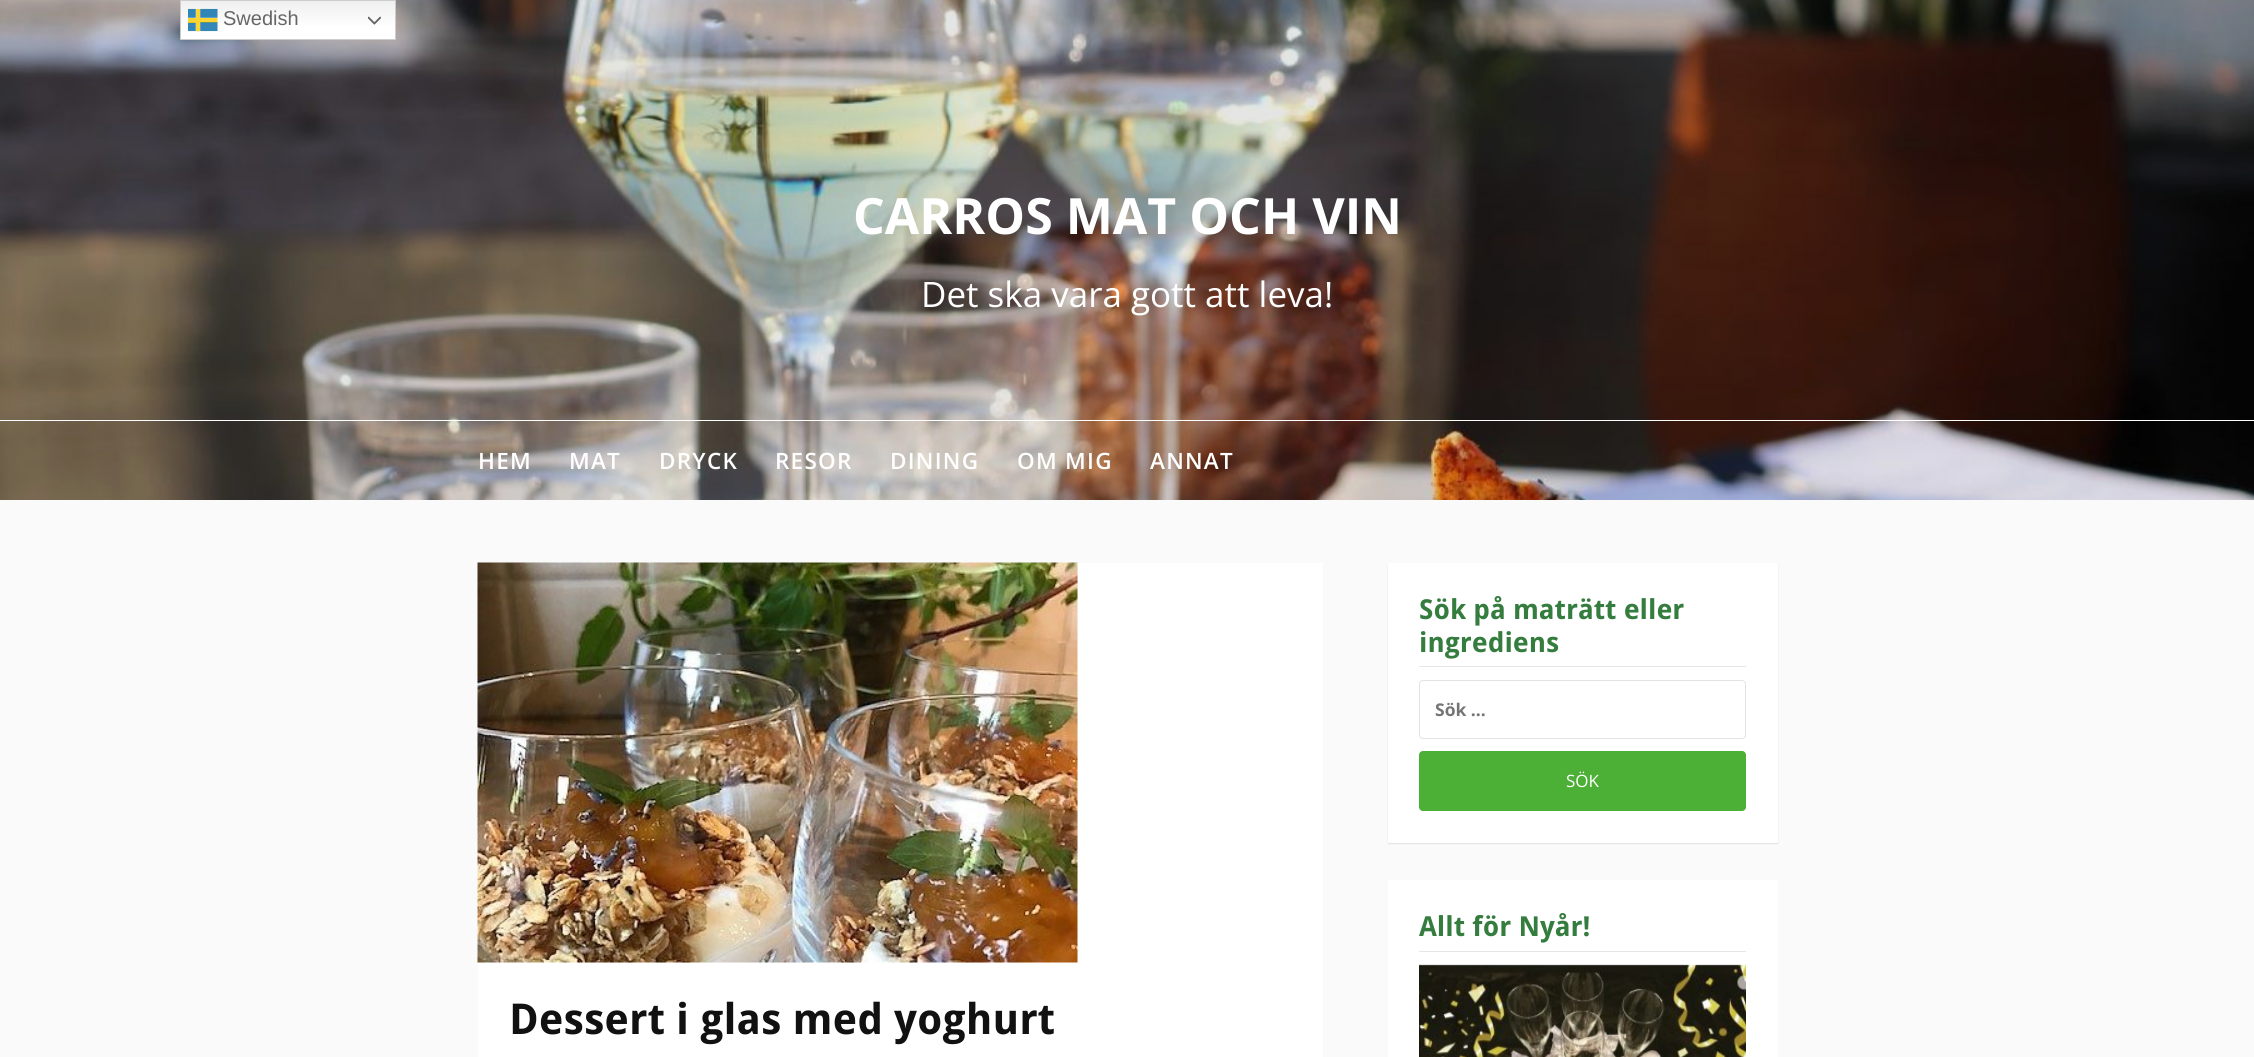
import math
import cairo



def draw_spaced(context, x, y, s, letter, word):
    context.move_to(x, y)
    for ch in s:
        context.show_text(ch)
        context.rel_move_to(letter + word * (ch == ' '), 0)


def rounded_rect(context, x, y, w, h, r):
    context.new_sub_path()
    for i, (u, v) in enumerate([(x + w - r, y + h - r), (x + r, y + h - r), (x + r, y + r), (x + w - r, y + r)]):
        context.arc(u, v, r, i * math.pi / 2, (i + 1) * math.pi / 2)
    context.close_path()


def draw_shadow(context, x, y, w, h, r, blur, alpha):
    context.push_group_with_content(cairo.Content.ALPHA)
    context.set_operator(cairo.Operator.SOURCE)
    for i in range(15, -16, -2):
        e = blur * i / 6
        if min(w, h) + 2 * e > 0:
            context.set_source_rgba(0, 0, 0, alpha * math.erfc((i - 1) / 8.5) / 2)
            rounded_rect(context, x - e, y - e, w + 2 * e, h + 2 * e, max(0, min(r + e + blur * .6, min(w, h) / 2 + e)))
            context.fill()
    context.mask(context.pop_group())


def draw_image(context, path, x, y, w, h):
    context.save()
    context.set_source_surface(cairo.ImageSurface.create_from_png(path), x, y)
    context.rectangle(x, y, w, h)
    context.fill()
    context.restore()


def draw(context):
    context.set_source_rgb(250 / 255, 250 / 255, 250 / 255)
    context.paint()
    draw_image(context, "images/1.png", 0, 0, 2254, 500)
    gradient = cairo.LinearGradient(288, 0, 288, 40)
    gradient.add_color_stop_rgba(0, 239 / 255, 239 / 255, 239 / 255, 1)
    gradient.add_color_stop_rgba(0.7, 1, 1, 1, 1)
    context.set_source(gradient)
    context.rectangle(181, 1, 214, 38)
    context.fill()
    context.rectangle(180.5, 0.5, 215, 39)
    context.set_source_rgb(204 / 255, 204 / 255, 204 / 255)
    context.set_line_width(1)
    context.stroke()
    draw_image(context, "images/2.png", 188, 8, 30, 24)
    draw_image(context, "images/3.png", 368, 16, 13, 9)
    context.set_source_rgb(1, 1, 1)
    context.rectangle(0, 420, 2254, 1)
    context.fill()
    context.set_source_rgb(0, 0, 0)
    draw_shadow(context, 1388, 564, 390, 280, 0, 0.5, 0.1)
    context.set_source_rgb(1, 1, 1)
    context.rectangle(1388, 563, 390, 280)
    context.fill()
    context.set_source_rgb(230 / 255, 230 / 255, 230 / 255)
    context.rectangle(1419, 666, 327, 1)
    context.fill()
    rounded_rect(context, 1419.5, 680.5, 326, 58, 3.5)
    context.set_source_rgb(227 / 255, 227 / 255, 227 / 255)
    context.stroke()
    context.set_source_rgb(76 / 255, 175 / 255, 54 / 255)
    rounded_rect(context, 1419.5, 751.5, 326, 59, 3.5)
    context.fill_preserve()
    context.stroke()
    context.set_source_rgb(1, 1, 1)
    context.rectangle(1388, 880, 390, 177)
    context.fill()
    context.set_source_rgb(230 / 255, 230 / 255, 230 / 255)
    context.rectangle(1419, 951, 327, 1)
    context.fill()
    draw_image(context, "images/4.png", 1419, 964, 327, 93)
    context.set_source_rgb(1, 1, 1)
    context.rectangle(478, 563, 845, 494)
    context.fill()
    draw_image(context, "images/5.png", 477, 562, 601, 401)
    context.select_font_face("Liberation Sans")
    context.set_font_size(20)
    context.set_source_rgb(102 / 255, 102 / 255, 102 / 255)
    context.move_to(223, 25)
    context.show_text("Swedish")
    context.select_font_face("Open Sans", cairo.FontSlant.NORMAL, cairo.FontWeight.BOLD)
    context.set_font_size(50)
    context.set_source_rgb(1, 1, 1)
    context.move_to(853, 234)
    context.show_text("CARROS MAT OCH VIN")
    context.select_font_face("Open Sans")
    context.set_font_size(35)
    context.move_to(921, 307)
    context.show_text("Det ska vara gott att leva!")
    context.select_font_face("Open Sans SemiBold")
    context.set_font_size(22.5)
    draw_spaced(context, 478, 469, "HEM", 1.25, 0)
    draw_spaced(context, 569, 469, "MAT", 1.25, 0)
    draw_spaced(context, 659, 469, "DRYCK", 1.25, 0)
    draw_spaced(context, 775, 469, "RESOR", 1.25, 0)
    draw_spaced(context, 890, 469, "DINING", 1.25, 0)
    draw_spaced(context, 1017, 469, "OM MIG", 1.25, 0)
    draw_spaced(context, 1150, 469, "ANNAT", 1.25, 0)
    context.select_font_face("Droid Sans", cairo.FontSlant.NORMAL, cairo.FontWeight.BOLD)
    context.set_font_size(27.5)
    context.set_source_rgb(53 / 255, 124 / 255, 63 / 255)
    context.move_to(1419, 619)
    context.show_text("Sök på maträtt eller")
    context.move_to(1419, 652)
    context.show_text("ingrediens")
    context.select_font_face("Open Sans", cairo.FontSlant.NORMAL, cairo.FontWeight.BOLD)
    context.set_font_size(17.5)
    context.set_source_rgb(117 / 255, 117 / 255, 117 / 255)
    context.move_to(1435, 716)
    context.show_text("Sök …")
    context.select_font_face("Open Sans")
    context.set_font_size(17)
    context.set_source_rgb(1, 1, 1)
    context.move_to(1566, 787)
    context.show_text("SÖK")
    context.select_font_face("Droid Sans", cairo.FontSlant.NORMAL, cairo.FontWeight.BOLD)
    context.set_font_size(27.5)
    context.set_source_rgb(53 / 255, 124 / 255, 63 / 255)
    context.move_to(1419, 936)
    context.show_text("Allt för Nyår!")
    context.set_font_size(42.5)
    context.set_source_rgb(17 / 255, 17 / 255, 17 / 255)
    context.move_to(509, 1034)
    context.show_text("Dessert i glas med yoghurt")


surface = cairo.ImageSurface(cairo.Format.RGB24, 2254, 1057)
context = cairo.Context(surface)
options = cairo.FontOptions()
options.set_hint_metrics(cairo.HintMetrics.OFF)
options.set_hint_style(cairo.HintStyle.NONE)
context.set_font_options(options)
context.set_miter_limit(4)
draw(context)
surface.write_to_png("out.png")
